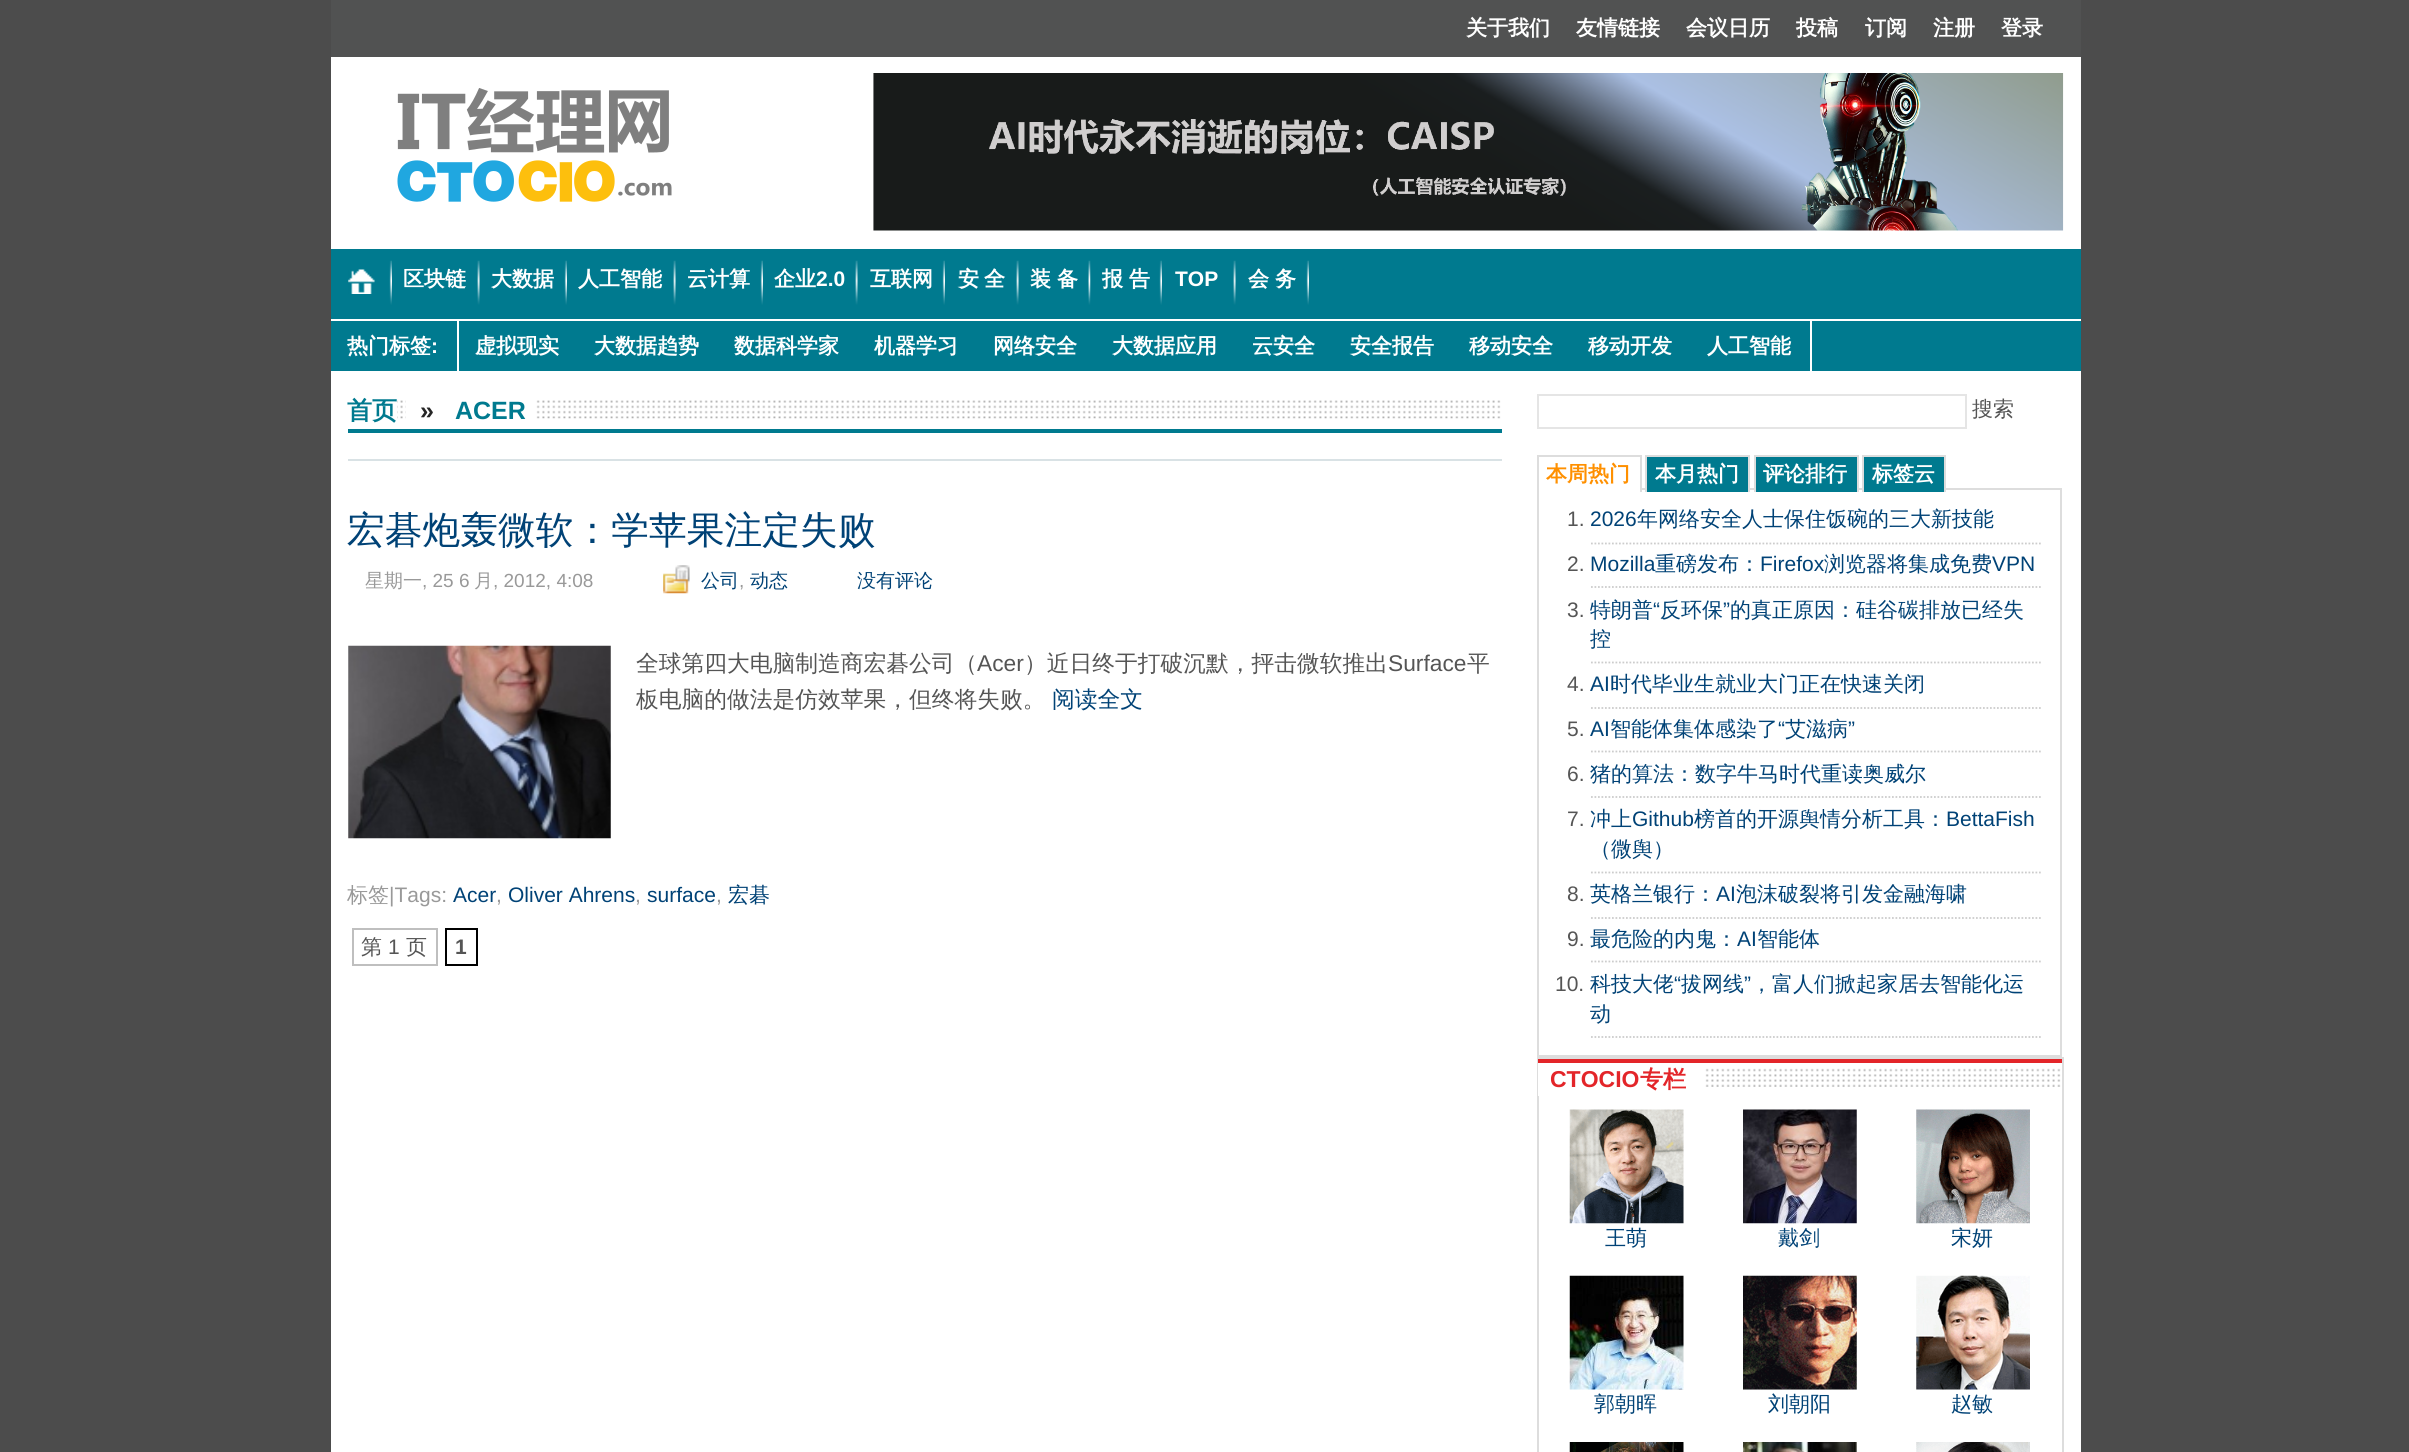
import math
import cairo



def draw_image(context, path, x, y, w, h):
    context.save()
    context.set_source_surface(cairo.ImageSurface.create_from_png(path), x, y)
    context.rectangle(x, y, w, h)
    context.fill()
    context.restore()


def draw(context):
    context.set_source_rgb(76 / 255, 76 / 255, 76 / 255)
    context.paint()
    context.set_source_rgb(1, 1, 1)
    context.rectangle(331, 57, 1750, 1395)
    context.fill()
    context.set_source_rgb(81 / 255, 82 / 255, 82 / 255)
    context.rectangle(331, 0, 1750, 57)
    context.fill()
    draw_image(context, "images/1.png", 397, 88, 275, 114)
    draw_image(context, "images/2.png", 873, 73, 1191, 158)
    context.set_source_rgb(0, 122 / 255, 143 / 255)
    context.rectangle(331, 249, 1750, 70)
    context.fill()
    draw_image(context, "images/3.png", 389, 260, 3, 45)
    draw_image(context, "images/4.png", 348, 269, 27, 25)
    draw_image(context, "images/5.png", 477, 260, 3, 45)
    draw_image(context, "images/3.png", 564, 260, 3, 45)
    draw_image(context, "images/5.png", 673, 260, 3, 45)
    draw_image(context, "images/3.png", 760, 260, 3, 45)
    draw_image(context, "images/5.png", 855, 260, 3, 45)
    draw_image(context, "images/3.png", 942, 260, 3, 45)
    draw_image(context, "images/5.png", 1016, 260, 3, 45)
    draw_image(context, "images/6.png", 1088, 260, 3, 45)
    draw_image(context, "images/3.png", 1159, 260, 3, 45)
    draw_image(context, "images/5.png", 1233, 260, 3, 45)
    draw_image(context, "images/3.png", 1306, 260, 3, 45)
    context.rectangle(331, 321, 1750, 50)
    context.fill()
    context.set_source_rgb(1, 1, 1)
    context.rectangle(457, 320, 2, 53)
    context.fill()
    context.rectangle(1810, 320, 2, 53)
    context.fill()
    draw_image(context, "images/7.png", 397, 400, 1104, 19)
    context.set_source_rgb(0, 122 / 255, 143 / 255)
    context.rectangle(348, 429, 1154, 4)
    context.fill()
    context.set_source_rgb(1, 1, 1)
    context.rectangle(406, 400, 129, 19)
    context.fill()
    context.set_source_rgb(217 / 255, 226 / 255, 229 / 255)
    context.rectangle(348, 459, 1154, 2)
    context.fill()
    draw_image(context, "images/8.png", 663, 565, 27, 29)
    draw_image(context, "images/9.png", 348, 645, 263, 194)
    context.rectangle(353, 929, 84, 36)
    context.set_source_rgb(191 / 255, 191 / 255, 191 / 255)
    context.stroke()
    context.rectangle(446, 929, 31, 36)
    context.set_source_rgb(0, 0, 0)
    context.stroke()
    context.rectangle(1538, 395, 428, 33)
    context.set_source_rgb(229 / 255, 229 / 255, 229 / 255)
    context.stroke()
    context.set_source_rgb(221 / 255, 221 / 255, 221 / 255)
    context.rectangle(1642, 488, 420, 2)
    context.fill()
    context.rectangle(1537, 455, 105, 2)
    context.fill()
    context.rectangle(1640, 455, 2, 37)
    context.fill()
    context.rectangle(2060, 490, 2, 567)
    context.fill()
    context.rectangle(1537, 1055, 525, 2)
    context.fill()
    context.rectangle(1537, 490, 2, 567)
    context.fill()
    context.rectangle(1537, 455, 2, 37)
    context.fill()
    context.set_source_rgb(0, 122 / 255, 143 / 255)
    context.rectangle(1647, 457, 101, 35)
    context.fill()
    context.set_source_rgb(221 / 255, 221 / 255, 221 / 255)
    context.rectangle(1645, 455, 105, 2)
    context.fill()
    context.rectangle(1748, 455, 2, 37)
    context.fill()
    context.rectangle(1645, 455, 2, 37)
    context.fill()
    context.set_source_rgb(0, 122 / 255, 143 / 255)
    context.rectangle(1756, 457, 101, 35)
    context.fill()
    context.set_source_rgb(221 / 255, 221 / 255, 221 / 255)
    context.rectangle(1754, 455, 105, 2)
    context.fill()
    context.rectangle(1857, 455, 2, 37)
    context.fill()
    context.rectangle(1754, 455, 2, 37)
    context.fill()
    context.set_source_rgb(0, 122 / 255, 143 / 255)
    context.rectangle(1864, 457, 80, 35)
    context.fill()
    context.set_source_rgb(221 / 255, 221 / 255, 221 / 255)
    context.rectangle(1862, 455, 84, 2)
    context.fill()
    context.rectangle(1944, 455, 2, 37)
    context.fill()
    context.rectangle(1862, 455, 2, 37)
    context.fill()
    context.new_path()
    context.move_to(1591, 543.5)
    context.line_to(2042, 543.5)
    context.set_source_rgb(204 / 255, 204 / 255, 204 / 255)
    context.set_line_width(1.8)
    context.set_dash([1.75, 1.75])
    context.stroke()
    context.new_path()
    context.move_to(1591, 587)
    context.line_to(2042, 587)
    context.stroke()
    context.new_path()
    context.move_to(1591, 662.5)
    context.line_to(2042, 662.5)
    context.stroke()
    context.new_path()
    context.move_to(1591, 708)
    context.line_to(2042, 708)
    context.stroke()
    context.new_path()
    context.move_to(1591, 751.5)
    context.line_to(2042, 751.5)
    context.stroke()
    context.new_path()
    context.move_to(1591, 797)
    context.line_to(2042, 797)
    context.stroke()
    context.new_path()
    context.move_to(1591, 872.5)
    context.line_to(2042, 872.5)
    context.stroke()
    context.new_path()
    context.move_to(1591, 918)
    context.line_to(2042, 918)
    context.stroke()
    context.new_path()
    context.move_to(1591, 961.5)
    context.line_to(2042, 961.5)
    context.stroke()
    context.new_path()
    context.move_to(1591, 1037)
    context.line_to(2042, 1037)
    context.stroke()
    context.set_source_rgb(221 / 255, 221 / 255, 221 / 255)
    context.rectangle(1537, 1057, 526, 2)
    context.fill()
    context.rectangle(2062, 1057, 2, 395)
    context.fill()
    context.rectangle(1537, 1057, 2, 395)
    context.fill()
    context.set_source_rgb(1, 1, 1)
    context.rectangle(1538, 1063, 1, 33)
    context.fill()
    draw_image(context, "images/10.png", 1705, 1068, 356, 19)
    context.set_source_rgb(227 / 255, 37 / 255, 41 / 255)
    context.rectangle(1538, 1059, 524, 4)
    context.fill()
    draw_image(context, "images/11.png", 1569, 1109, 115, 115)
    draw_image(context, "images/12.png", 1743, 1109, 114, 115)
    draw_image(context, "images/13.png", 1916, 1109, 114, 115)
    draw_image(context, "images/14.png", 1569, 1275, 115, 115)
    draw_image(context, "images/15.png", 1743, 1275, 114, 115)
    draw_image(context, "images/16.png", 1916, 1275, 114, 115)
    draw_image(context, "images/17.png", 1569, 1442, 115, 10)
    draw_image(context, "images/18.png", 1743, 1442, 114, 10)
    draw_image(context, "images/19.png", 1916, 1442, 114, 10)
    context.select_font_face("WenQuanYi Zen Hei", cairo.FontSlant.NORMAL, cairo.FontWeight.BOLD)
    context.set_font_size(21)
    context.set_source_rgb(1, 1, 1)
    context.move_to(1466, 35)
    context.show_text("关于我们")
    context.move_to(1576, 35)
    context.show_text("友情链接")
    context.move_to(1686, 35)
    context.show_text("会议日历")
    context.move_to(1796, 35)
    context.show_text("投稿")
    context.move_to(1865, 35)
    context.show_text("订阅")
    context.move_to(1933, 35)
    context.show_text("注册")
    context.move_to(2001, 35)
    context.show_text("登录")
    context.move_to(403, 286)
    context.show_text("区块链")
    context.move_to(491, 286)
    context.show_text("大数据")
    context.move_to(578, 286)
    context.show_text("人工智能")
    context.move_to(687, 286)
    context.show_text("云计算")
    context.move_to(774, 286)
    context.show_text("企业")
    context.select_font_face("Liberation Sans", cairo.FontSlant.NORMAL, cairo.FontWeight.BOLD)
    context.move_to(816, 286)
    context.show_text("2.0")
    context.select_font_face("WenQuanYi Zen Hei", cairo.FontSlant.NORMAL, cairo.FontWeight.BOLD)
    context.move_to(870, 286)
    context.show_text("互联网")
    context.move_to(958, 286)
    context.show_text("安")
    context.move_to(984, 286)
    context.show_text("全")
    context.move_to(1030, 286)
    context.show_text("装")
    context.move_to(1057, 286)
    context.show_text("备")
    context.move_to(1102, 286)
    context.show_text("报")
    context.move_to(1129, 286)
    context.show_text("告")
    context.select_font_face("Liberation Sans", cairo.FontSlant.NORMAL, cairo.FontWeight.BOLD)
    context.move_to(1175, 286)
    context.show_text("TOP")
    context.select_font_face("WenQuanYi Zen Hei", cairo.FontSlant.NORMAL, cairo.FontWeight.BOLD)
    context.move_to(1248, 286)
    context.show_text("会")
    context.move_to(1275, 286)
    context.show_text("务")
    context.move_to(347, 353)
    context.show_text("热门标签")
    context.select_font_face("Liberation Sans", cairo.FontSlant.NORMAL, cairo.FontWeight.BOLD)
    context.move_to(431, 353)
    context.show_text(":")
    context.select_font_face("WenQuanYi Zen Hei", cairo.FontSlant.NORMAL, cairo.FontWeight.BOLD)
    context.move_to(475, 353)
    context.show_text("虚拟现实")
    context.move_to(594, 353)
    context.show_text("大数据趋势")
    context.move_to(734, 353)
    context.show_text("数据科学家")
    context.move_to(874, 353)
    context.show_text("机器学习")
    context.move_to(993, 353)
    context.show_text("网络安全")
    context.move_to(1112, 353)
    context.show_text("大数据应用")
    context.move_to(1252, 353)
    context.show_text("云安全")
    context.move_to(1350, 353)
    context.show_text("安全报告")
    context.move_to(1469, 353)
    context.show_text("移动安全")
    context.move_to(1588, 353)
    context.show_text("移动开发")
    context.move_to(1707, 353)
    context.show_text("人工智能")
    context.set_font_size(25)
    context.set_source_rgb(0, 122 / 255, 143 / 255)
    context.move_to(347, 419)
    context.show_text("首页")
    context.select_font_face("Liberation Sans", cairo.FontSlant.NORMAL, cairo.FontWeight.BOLD)
    context.set_source_rgb(38 / 255, 38 / 255, 38 / 255)
    context.move_to(420, 419)
    context.show_text("»")
    context.set_source_rgb(0, 122 / 255, 143 / 255)
    context.move_to(455, 419)
    context.show_text("ACER")
    context.select_font_face("WenQuanYi Zen Hei Medium")
    context.set_font_size(37.75)
    context.set_source_rgb(0, 66 / 255, 118 / 255)
    context.move_to(347, 543)
    context.show_text("宏碁炮轰微软：学苹果注定失败")
    context.set_font_size(19)
    context.set_source_rgb(153 / 255, 153 / 255, 153 / 255)
    context.move_to(365, 587)
    context.show_text("星期一")
    context.select_font_face("Liberation Sans")
    context.move_to(422, 587)
    context.show_text(", 25 6")
    context.select_font_face("WenQuanYi Zen Hei Medium")
    context.move_to(474, 587)
    context.show_text("月")
    context.select_font_face("Liberation Sans")
    context.move_to(493, 587)
    context.show_text(", 2012, 4:08")
    context.select_font_face("WenQuanYi Zen Hei Medium")
    context.set_source_rgb(0, 66 / 255, 118 / 255)
    context.move_to(701, 587)
    context.show_text("公司")
    context.select_font_face("Liberation Sans")
    context.set_source_rgb(153 / 255, 153 / 255, 153 / 255)
    context.move_to(739, 587)
    context.show_text(",")
    context.select_font_face("WenQuanYi Zen Hei Medium")
    context.set_source_rgb(0, 66 / 255, 118 / 255)
    context.move_to(750, 587)
    context.show_text("动态")
    context.move_to(857, 587)
    context.show_text("没有评论")
    context.set_font_size(22.75)
    context.set_source_rgb(85 / 255, 85 / 255, 85 / 255)
    context.move_to(636, 671)
    context.show_text("全球第四大电脑制造商宏碁公司（")
    context.select_font_face("Liberation Sans")
    context.move_to(977, 671)
    context.show_text("Acer")
    context.select_font_face("WenQuanYi Zen Hei Medium")
    context.move_to(1024, 671)
    context.show_text("）近日终于打破沉默，抨击微软推出")
    context.select_font_face("Liberation Sans")
    context.move_to(1388, 671)
    context.show_text("Surface")
    context.select_font_face("WenQuanYi Zen Hei Medium")
    context.move_to(1467, 671)
    context.show_text("平")
    context.move_to(636, 707)
    context.show_text("板电脑的做法是仿效苹果，但终将失败。")
    context.set_source_rgb(0, 66 / 255, 118 / 255)
    context.move_to(1052, 707)
    context.show_text("阅读全文")
    context.set_font_size(21)
    context.set_source_rgb(153 / 255, 153 / 255, 153 / 255)
    context.move_to(347, 902)
    context.show_text("标签")
    context.select_font_face("Liberation Sans")
    context.move_to(389, 902)
    context.show_text("|Tags:")
    context.set_source_rgb(0, 66 / 255, 118 / 255)
    context.move_to(453, 902)
    context.show_text("Acer")
    context.set_source_rgb(153 / 255, 153 / 255, 153 / 255)
    context.move_to(496, 902)
    context.show_text(",")
    context.set_source_rgb(0, 66 / 255, 118 / 255)
    context.move_to(508, 902)
    context.show_text("Oliver Ahrens")
    context.set_source_rgb(153 / 255, 153 / 255, 153 / 255)
    context.move_to(635, 902)
    context.show_text(",")
    context.set_source_rgb(0, 66 / 255, 118 / 255)
    context.move_to(647, 902)
    context.show_text("surface")
    context.set_source_rgb(153 / 255, 153 / 255, 153 / 255)
    context.move_to(716, 902)
    context.show_text(",")
    context.select_font_face("WenQuanYi Zen Hei Medium")
    context.set_source_rgb(0, 66 / 255, 118 / 255)
    context.move_to(728, 902)
    context.show_text("宏碁")
    context.set_source_rgb(85 / 255, 85 / 255, 85 / 255)
    context.move_to(361, 954)
    context.show_text("第")
    context.select_font_face("Liberation Sans")
    context.move_to(388, 954)
    context.show_text("1")
    context.select_font_face("WenQuanYi Zen Hei Medium")
    context.move_to(406, 954)
    context.show_text("页")
    context.select_font_face("Liberation Sans", cairo.FontSlant.NORMAL, cairo.FontWeight.BOLD)
    context.move_to(455, 954)
    context.show_text("1")
    context.select_font_face("WenQuanYi Zen Hei Medium")
    context.move_to(1972, 416)
    context.show_text("搜索")
    context.select_font_face("WenQuanYi Zen Hei", cairo.FontSlant.NORMAL, cairo.FontWeight.BOLD)
    context.set_source_rgb(1, 144 / 255, 0)
    context.move_to(1546, 481)
    context.show_text("本周热门")
    context.set_source_rgb(1, 1, 1)
    context.move_to(1655, 481)
    context.show_text("本月热门")
    context.move_to(1763, 481)
    context.show_text("评论排行")
    context.move_to(1872, 481)
    context.show_text("标签云")
    context.select_font_face("Liberation Sans")
    context.set_source_rgb(85 / 255, 85 / 255, 85 / 255)
    context.move_to(1567, 526)
    context.show_text("1.")
    context.set_source_rgb(0, 66 / 255, 118 / 255)
    context.move_to(1590, 526)
    context.show_text("2026")
    context.select_font_face("WenQuanYi Zen Hei Medium")
    context.move_to(1637, 526)
    context.show_text("年网络安全人士保住饭碗的三大新技能")
    context.select_font_face("Liberation Sans")
    context.set_source_rgb(85 / 255, 85 / 255, 85 / 255)
    context.move_to(1567, 571)
    context.show_text("2.")
    context.set_source_rgb(0, 66 / 255, 118 / 255)
    context.move_to(1590, 571)
    context.show_text("Mozilla")
    context.select_font_face("WenQuanYi Zen Hei Medium")
    context.move_to(1655, 571)
    context.show_text("重磅发布：")
    context.select_font_face("Liberation Sans")
    context.move_to(1760, 571)
    context.show_text("Firefox")
    context.select_font_face("WenQuanYi Zen Hei Medium")
    context.move_to(1824, 571)
    context.show_text("浏览器将集成免费")
    context.select_font_face("Liberation Sans")
    context.move_to(1992, 571)
    context.show_text("VPN")
    context.set_source_rgb(85 / 255, 85 / 255, 85 / 255)
    context.move_to(1567, 617)
    context.show_text("3.")
    context.select_font_face("WenQuanYi Zen Hei Medium")
    context.set_source_rgb(0, 66 / 255, 118 / 255)
    context.move_to(1590, 617)
    context.show_text("特朗普")
    context.select_font_face("Liberation Sans")
    context.move_to(1653, 617)
    context.show_text("“")
    context.select_font_face("WenQuanYi Zen Hei Medium")
    context.move_to(1660, 617)
    context.show_text("反环保")
    context.select_font_face("Liberation Sans")
    context.move_to(1723, 617)
    context.show_text("”")
    context.select_font_face("WenQuanYi Zen Hei Medium")
    context.move_to(1730, 617)
    context.show_text("的真正原因：硅谷碳排放已经失")
    context.move_to(1590, 646)
    context.show_text("控")
    context.select_font_face("Liberation Sans")
    context.set_source_rgb(85 / 255, 85 / 255, 85 / 255)
    context.move_to(1567, 691)
    context.show_text("4.")
    context.set_source_rgb(0, 66 / 255, 118 / 255)
    context.move_to(1590, 691)
    context.show_text("AI")
    context.select_font_face("WenQuanYi Zen Hei Medium")
    context.move_to(1610, 691)
    context.show_text("时代毕业生就业大门正在快速关闭")
    context.select_font_face("Liberation Sans")
    context.set_source_rgb(85 / 255, 85 / 255, 85 / 255)
    context.move_to(1567, 736)
    context.show_text("5.")
    context.set_source_rgb(0, 66 / 255, 118 / 255)
    context.move_to(1590, 736)
    context.show_text("AI")
    context.select_font_face("WenQuanYi Zen Hei Medium")
    context.move_to(1610, 736)
    context.show_text("智能体集体感染了")
    context.select_font_face("Liberation Sans")
    context.move_to(1778, 736)
    context.show_text("“")
    context.select_font_face("WenQuanYi Zen Hei Medium")
    context.move_to(1785, 736)
    context.show_text("艾滋病")
    context.select_font_face("Liberation Sans")
    context.move_to(1848, 736)
    context.show_text("”")
    context.set_source_rgb(85 / 255, 85 / 255, 85 / 255)
    context.move_to(1567, 781)
    context.show_text("6.")
    context.select_font_face("WenQuanYi Zen Hei Medium")
    context.set_source_rgb(0, 66 / 255, 118 / 255)
    context.move_to(1590, 781)
    context.show_text("猪的算法：数字牛马时代重读奥威尔")
    context.select_font_face("Liberation Sans")
    context.set_source_rgb(85 / 255, 85 / 255, 85 / 255)
    context.move_to(1567, 826)
    context.show_text("7.")
    context.select_font_face("WenQuanYi Zen Hei Medium")
    context.set_source_rgb(0, 66 / 255, 118 / 255)
    context.move_to(1590, 826)
    context.show_text("冲上")
    context.select_font_face("Liberation Sans")
    context.move_to(1632, 826)
    context.show_text("Github")
    context.select_font_face("WenQuanYi Zen Hei Medium")
    context.move_to(1694, 826)
    context.show_text("榜首的开源舆情分析工具：")
    context.select_font_face("Liberation Sans")
    context.move_to(1946, 826)
    context.show_text("BettaFish")
    context.select_font_face("WenQuanYi Zen Hei Medium")
    context.move_to(1590, 856)
    context.show_text("（微舆）")
    context.select_font_face("Liberation Sans")
    context.set_source_rgb(85 / 255, 85 / 255, 85 / 255)
    context.move_to(1567, 901)
    context.show_text("8.")
    context.select_font_face("WenQuanYi Zen Hei Medium")
    context.set_source_rgb(0, 66 / 255, 118 / 255)
    context.move_to(1590, 901)
    context.show_text("英格兰银行：")
    context.select_font_face("Liberation Sans")
    context.move_to(1716, 901)
    context.show_text("AI")
    context.select_font_face("WenQuanYi Zen Hei Medium")
    context.move_to(1736, 901)
    context.show_text("泡沫破裂将引发金融海啸")
    context.select_font_face("Liberation Sans")
    context.set_source_rgb(85 / 255, 85 / 255, 85 / 255)
    context.move_to(1567, 946)
    context.show_text("9.")
    context.select_font_face("WenQuanYi Zen Hei Medium")
    context.set_source_rgb(0, 66 / 255, 118 / 255)
    context.move_to(1590, 946)
    context.show_text("最危险的内鬼：")
    context.select_font_face("Liberation Sans")
    context.move_to(1737, 946)
    context.show_text("AI")
    context.select_font_face("WenQuanYi Zen Hei Medium")
    context.move_to(1757, 946)
    context.show_text("智能体")
    context.select_font_face("Liberation Sans")
    context.set_source_rgb(85 / 255, 85 / 255, 85 / 255)
    context.move_to(1555, 991)
    context.show_text("10.")
    context.select_font_face("WenQuanYi Zen Hei Medium")
    context.set_source_rgb(0, 66 / 255, 118 / 255)
    context.move_to(1590, 991)
    context.show_text("科技大佬")
    context.select_font_face("Liberation Sans")
    context.move_to(1674, 991)
    context.show_text("“")
    context.select_font_face("WenQuanYi Zen Hei Medium")
    context.move_to(1681, 991)
    context.show_text("拔网线")
    context.select_font_face("Liberation Sans")
    context.move_to(1744, 991)
    context.show_text("”")
    context.select_font_face("WenQuanYi Zen Hei Medium")
    context.move_to(1751, 991)
    context.show_text("，富人们掀起家居去智能化运")
    context.move_to(1590, 1021)
    context.show_text("动")
    context.select_font_face("Liberation Sans", cairo.FontSlant.NORMAL, cairo.FontWeight.BOLD)
    context.set_font_size(23)
    context.set_source_rgb(227 / 255, 37 / 255, 41 / 255)
    context.move_to(1550, 1087)
    context.show_text("CTOCIO")
    context.select_font_face("WenQuanYi Zen Hei", cairo.FontSlant.NORMAL, cairo.FontWeight.BOLD)
    context.move_to(1640, 1087)
    context.show_text("专栏")
    context.select_font_face("WenQuanYi Zen Hei Medium")
    context.set_font_size(21)
    context.set_source_rgb(0, 66 / 255, 118 / 255)
    context.move_to(1605, 1245)
    context.show_text("王萌")
    context.move_to(1778, 1245)
    context.show_text("戴剑")
    context.move_to(1951, 1245)
    context.show_text("宋妍")
    context.move_to(1594, 1411)
    context.show_text("郭朝晖")
    context.move_to(1768, 1411)
    context.show_text("刘朝阳")
    context.move_to(1951, 1411)
    context.show_text("赵敏")


surface = cairo.ImageSurface(cairo.Format.RGB24, 2409, 1452)
context = cairo.Context(surface)
options = cairo.FontOptions()
options.set_hint_metrics(cairo.HintMetrics.OFF)
options.set_hint_style(cairo.HintStyle.NONE)
context.set_font_options(options)
context.set_miter_limit(4)
draw(context)
surface.write_to_png("out.png")
